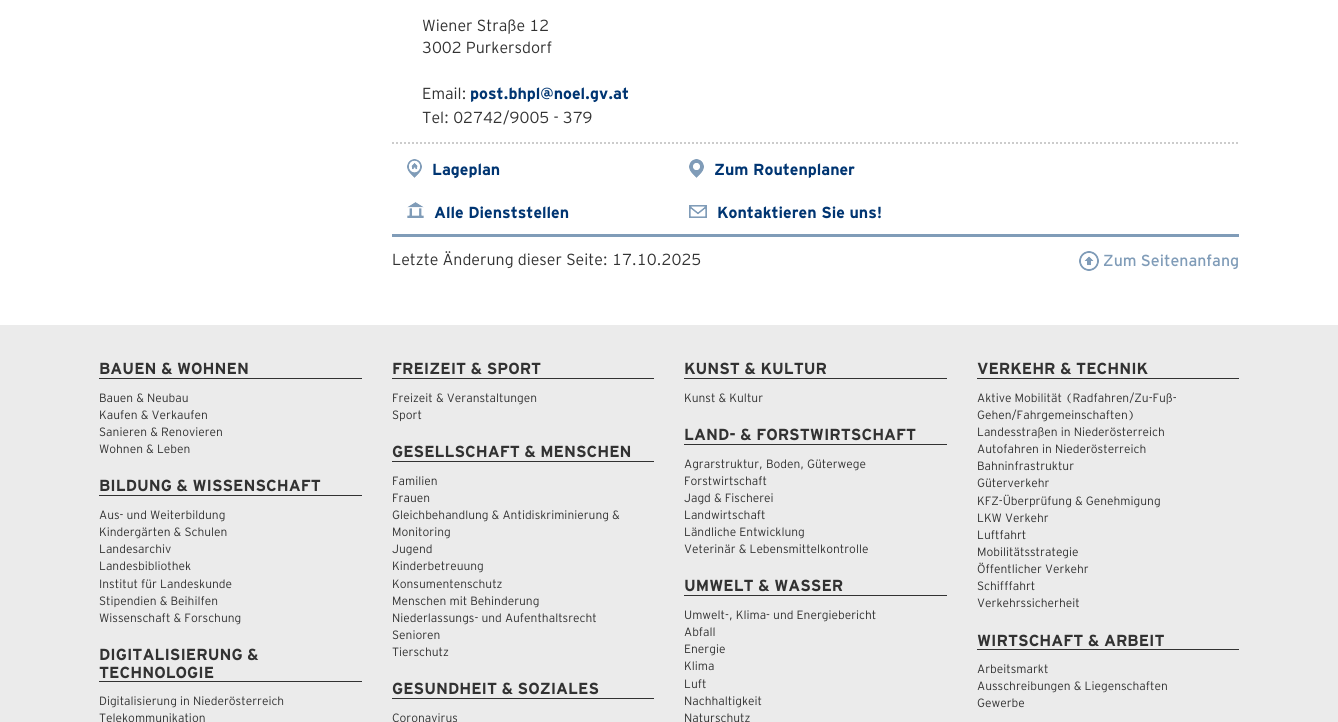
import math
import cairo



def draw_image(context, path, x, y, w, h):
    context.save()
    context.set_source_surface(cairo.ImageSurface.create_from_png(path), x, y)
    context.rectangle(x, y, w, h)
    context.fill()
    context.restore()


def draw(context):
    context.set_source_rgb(1, 1, 1)
    context.paint()
    context.new_path()
    context.move_to(392, 143)
    context.line_to(1239, 143)
    context.set_source_rgb(204 / 255, 204 / 255, 204 / 255)
    context.set_dash([2, 2])
    context.stroke()
    draw_image(context, "images/1.png", 407, 159, 15, 19)
    draw_image(context, "images/2.png", 689, 159, 15, 19)
    draw_image(context, "images/3.png", 407, 202, 17, 16)
    draw_image(context, "images/4.png", 689, 205, 18, 13)
    context.set_source_rgb(128 / 255, 156 / 255, 184 / 255)
    context.rectangle(392, 234, 847, 3)
    context.fill()
    draw_image(context, "images/5.png", 1079, 251, 20, 20)
    context.set_source_rgb(235 / 255, 235 / 255, 235 / 255)
    context.rectangle(0, 325, 1338, 397)
    context.fill()
    context.set_source_rgb(50 / 255, 50 / 255, 50 / 255)
    context.rectangle(99, 378, 263, 1)
    context.fill()
    context.rectangle(99, 495, 263, 1)
    context.fill()
    context.rectangle(99, 681, 263, 1)
    context.fill()
    context.rectangle(392, 378, 262, 1)
    context.fill()
    context.rectangle(392, 461, 262, 1)
    context.fill()
    context.rectangle(392, 698, 262, 1)
    context.fill()
    context.rectangle(684, 378, 263, 1)
    context.fill()
    context.rectangle(684, 444, 263, 1)
    context.fill()
    context.rectangle(684, 595, 263, 1)
    context.fill()
    context.rectangle(977, 378, 262, 1)
    context.fill()
    context.rectangle(977, 649, 262, 1)
    context.fill()
    context.select_font_face("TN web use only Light")
    context.set_font_size(16)
    context.move_to(422, 31)
    context.show_text("Wiener Straße 12")
    context.move_to(422, 53)
    context.show_text("3002 Purkersdorf")
    context.move_to(422, 99)
    context.show_text("Email:")
    context.select_font_face("TN web use only", cairo.FontSlant.NORMAL, cairo.FontWeight.BOLD)
    context.set_source_rgb(0, 53 / 255, 114 / 255)
    context.move_to(470, 99)
    context.show_text("post.bhpl@noel.gv.at")
    context.select_font_face("TN web use only Light")
    context.set_source_rgb(50 / 255, 50 / 255, 50 / 255)
    context.move_to(422, 123)
    context.show_text("Tel: 02742/9005 - 379")
    context.select_font_face("TN web use only", cairo.FontSlant.NORMAL, cairo.FontWeight.BOLD)
    context.set_source_rgb(0, 53 / 255, 114 / 255)
    context.move_to(432, 175)
    context.show_text("Lageplan")
    context.move_to(714, 175)
    context.show_text("Zum Routenplaner")
    context.move_to(434, 218)
    context.show_text("Alle Dienststellen")
    context.move_to(717, 218)
    context.show_text("Kontaktieren Sie uns!")
    context.select_font_face("TN web use only Light")
    context.set_source_rgb(50 / 255, 50 / 255, 50 / 255)
    context.move_to(392, 265)
    context.show_text("Letzte Änderung dieser Seite: 17.10.2025")
    context.select_font_face("TN web use only")
    context.set_source_rgb(128 / 255, 156 / 255, 184 / 255)
    context.move_to(1103, 266)
    context.show_text("Zum Seitenanfang")
    context.select_font_face("TN web use only", cairo.FontSlant.NORMAL, cairo.FontWeight.BOLD)
    context.set_source_rgb(50 / 255, 50 / 255, 50 / 255)
    context.move_to(99, 374)
    context.show_text("BAUEN & WOHNEN")
    context.select_font_face("TN web use only Light")
    context.set_font_size(12)
    context.move_to(99, 402)
    context.show_text("Bauen & Neubau")
    context.move_to(99, 419)
    context.show_text("Kaufen & Verkaufen")
    context.move_to(99, 436)
    context.show_text("Sanieren & Renovieren")
    context.move_to(99, 453)
    context.show_text("Wohnen & Leben")
    context.select_font_face("TN web use only", cairo.FontSlant.NORMAL, cairo.FontWeight.BOLD)
    context.set_font_size(16)
    context.move_to(99, 491)
    context.show_text("BILDUNG & WISSENSCHAFT")
    context.select_font_face("TN web use only Light")
    context.set_font_size(12)
    context.move_to(99, 519)
    context.show_text("Aus- und Weiterbildung")
    context.move_to(99, 536)
    context.show_text("Kindergärten & Schulen")
    context.move_to(99, 553)
    context.show_text("Landesarchiv")
    context.move_to(99, 570)
    context.show_text("Landesbibliothek")
    context.move_to(99, 588)
    context.show_text("Institut für Landeskunde")
    context.move_to(99, 605)
    context.show_text("Stipendien & Beihilfen")
    context.move_to(99, 622)
    context.show_text("Wissenschaft & Forschung")
    context.select_font_face("TN web use only", cairo.FontSlant.NORMAL, cairo.FontWeight.BOLD)
    context.set_font_size(16)
    context.move_to(99, 660)
    context.show_text("DIGITALISIERUNG &")
    context.move_to(99, 678)
    context.show_text("TECHNOLOGIE")
    context.select_font_face("TN web use only Light")
    context.set_font_size(12)
    context.move_to(99, 705)
    context.show_text("Digitalisierung in Niederösterreich")
    context.move_to(99, 722)
    context.show_text("Telekommunikation")
    context.select_font_face("TN web use only", cairo.FontSlant.NORMAL, cairo.FontWeight.BOLD)
    context.set_font_size(16)
    context.move_to(392, 374)
    context.show_text("FREIZEIT & SPORT")
    context.select_font_face("TN web use only Light")
    context.set_font_size(12)
    context.move_to(392, 402)
    context.show_text("Freizeit & Veranstaltungen")
    context.move_to(392, 419)
    context.show_text("Sport")
    context.select_font_face("TN web use only", cairo.FontSlant.NORMAL, cairo.FontWeight.BOLD)
    context.set_font_size(16)
    context.move_to(392, 457)
    context.show_text("GESELLSCHAFT & MENSCHEN")
    context.select_font_face("TN web use only Light")
    context.set_font_size(12)
    context.move_to(392, 485)
    context.show_text("Familien")
    context.move_to(392, 502)
    context.show_text("Frauen")
    context.move_to(392, 519)
    context.show_text("Gleichbehandlung & Antidiskriminierung &")
    context.move_to(392, 536)
    context.show_text("Monitoring")
    context.move_to(392, 553)
    context.show_text("Jugend")
    context.move_to(392, 570)
    context.show_text("Kinderbetreuung")
    context.move_to(392, 588)
    context.show_text("Konsumentenschutz")
    context.move_to(392, 605)
    context.show_text("Menschen mit Behinderung")
    context.move_to(392, 622)
    context.show_text("Niederlassungs- und Aufenthaltsrecht")
    context.move_to(392, 639)
    context.show_text("Senioren")
    context.move_to(392, 656)
    context.show_text("Tierschutz")
    context.select_font_face("TN web use only", cairo.FontSlant.NORMAL, cairo.FontWeight.BOLD)
    context.set_font_size(16)
    context.move_to(392, 694)
    context.show_text("GESUNDHEIT & SOZIALES")
    context.select_font_face("TN web use only Light")
    context.set_font_size(12)
    context.move_to(392, 722)
    context.show_text("Coronavirus")
    context.select_font_face("TN web use only", cairo.FontSlant.NORMAL, cairo.FontWeight.BOLD)
    context.set_font_size(16)
    context.move_to(684, 374)
    context.show_text("KUNST & KULTUR")
    context.select_font_face("TN web use only Light")
    context.set_font_size(12)
    context.move_to(684, 402)
    context.show_text("Kunst & Kultur")
    context.select_font_face("TN web use only", cairo.FontSlant.NORMAL, cairo.FontWeight.BOLD)
    context.set_font_size(16)
    context.move_to(684, 440)
    context.show_text("LAND- & FORSTWIRTSCHAFT")
    context.select_font_face("TN web use only Light")
    context.set_font_size(12)
    context.move_to(684, 468)
    context.show_text("Agrarstruktur, Boden, Güterwege")
    context.move_to(684, 485)
    context.show_text("Forstwirtschaft")
    context.move_to(684, 502)
    context.show_text("Jagd & Fischerei")
    context.move_to(684, 519)
    context.show_text("Landwirtschaft")
    context.move_to(684, 536)
    context.show_text("Ländliche Entwicklung")
    context.move_to(684, 553)
    context.show_text("Veterinär & Lebensmittelkontrolle")
    context.select_font_face("TN web use only", cairo.FontSlant.NORMAL, cairo.FontWeight.BOLD)
    context.set_font_size(16)
    context.move_to(684, 591)
    context.show_text("UMWELT & WASSER")
    context.select_font_face("TN web use only Light")
    context.set_font_size(12)
    context.move_to(684, 619)
    context.show_text("Umwelt-, Klima- und Energiebericht")
    context.move_to(684, 636)
    context.show_text("Abfall")
    context.move_to(684, 653)
    context.show_text("Energie")
    context.move_to(684, 670)
    context.show_text("Klima")
    context.move_to(684, 688)
    context.show_text("Luft")
    context.move_to(684, 705)
    context.show_text("Nachhaltigkeit")
    context.move_to(684, 722)
    context.show_text("Naturschutz")
    context.select_font_face("TN web use only", cairo.FontSlant.NORMAL, cairo.FontWeight.BOLD)
    context.set_font_size(16)
    context.move_to(977, 374)
    context.show_text("VERKEHR & TECHNIK")
    context.select_font_face("TN web use only Light")
    context.set_font_size(12)
    context.move_to(977, 402)
    context.show_text("Aktive Mobilität (Radfahren/Zu-Fuß-")
    context.move_to(977, 419)
    context.show_text("Gehen/Fahrgemeinschaften)")
    context.move_to(977, 436)
    context.show_text("Landesstraßen in Niederösterreich")
    context.move_to(977, 453)
    context.show_text("Autofahren in Niederösterreich")
    context.move_to(977, 470)
    context.show_text("Bahninfrastruktur")
    context.move_to(977, 487)
    context.show_text("Güterverkehr")
    context.move_to(977, 505)
    context.show_text("KFZ-Überprüfung & Genehmigung")
    context.move_to(977, 522)
    context.show_text("LKW Verkehr")
    context.move_to(977, 539)
    context.show_text("Luftfahrt")
    context.move_to(977, 556)
    context.show_text("Mobilitätsstrategie")
    context.move_to(977, 573)
    context.show_text("Öffentlicher Verkehr")
    context.move_to(977, 590)
    context.show_text("Schifffahrt")
    context.move_to(977, 607)
    context.show_text("Verkehrssicherheit")
    context.select_font_face("TN web use only", cairo.FontSlant.NORMAL, cairo.FontWeight.BOLD)
    context.set_font_size(16)
    context.move_to(977, 646)
    context.show_text("WIRTSCHAFT & ARBEIT")
    context.select_font_face("TN web use only Light")
    context.set_font_size(12)
    context.move_to(977, 673)
    context.show_text("Arbeitsmarkt")
    context.move_to(977, 690)
    context.show_text("Ausschreibungen & Liegenschaften")
    context.move_to(977, 707)
    context.show_text("Gewerbe")


surface = cairo.ImageSurface(cairo.Format.RGB24, 1338, 722)
context = cairo.Context(surface)
options = cairo.FontOptions()
options.set_hint_metrics(cairo.HintMetrics.OFF)
options.set_hint_style(cairo.HintStyle.NONE)
context.set_font_options(options)
context.set_miter_limit(4)
draw(context)
surface.write_to_png("out.png")
